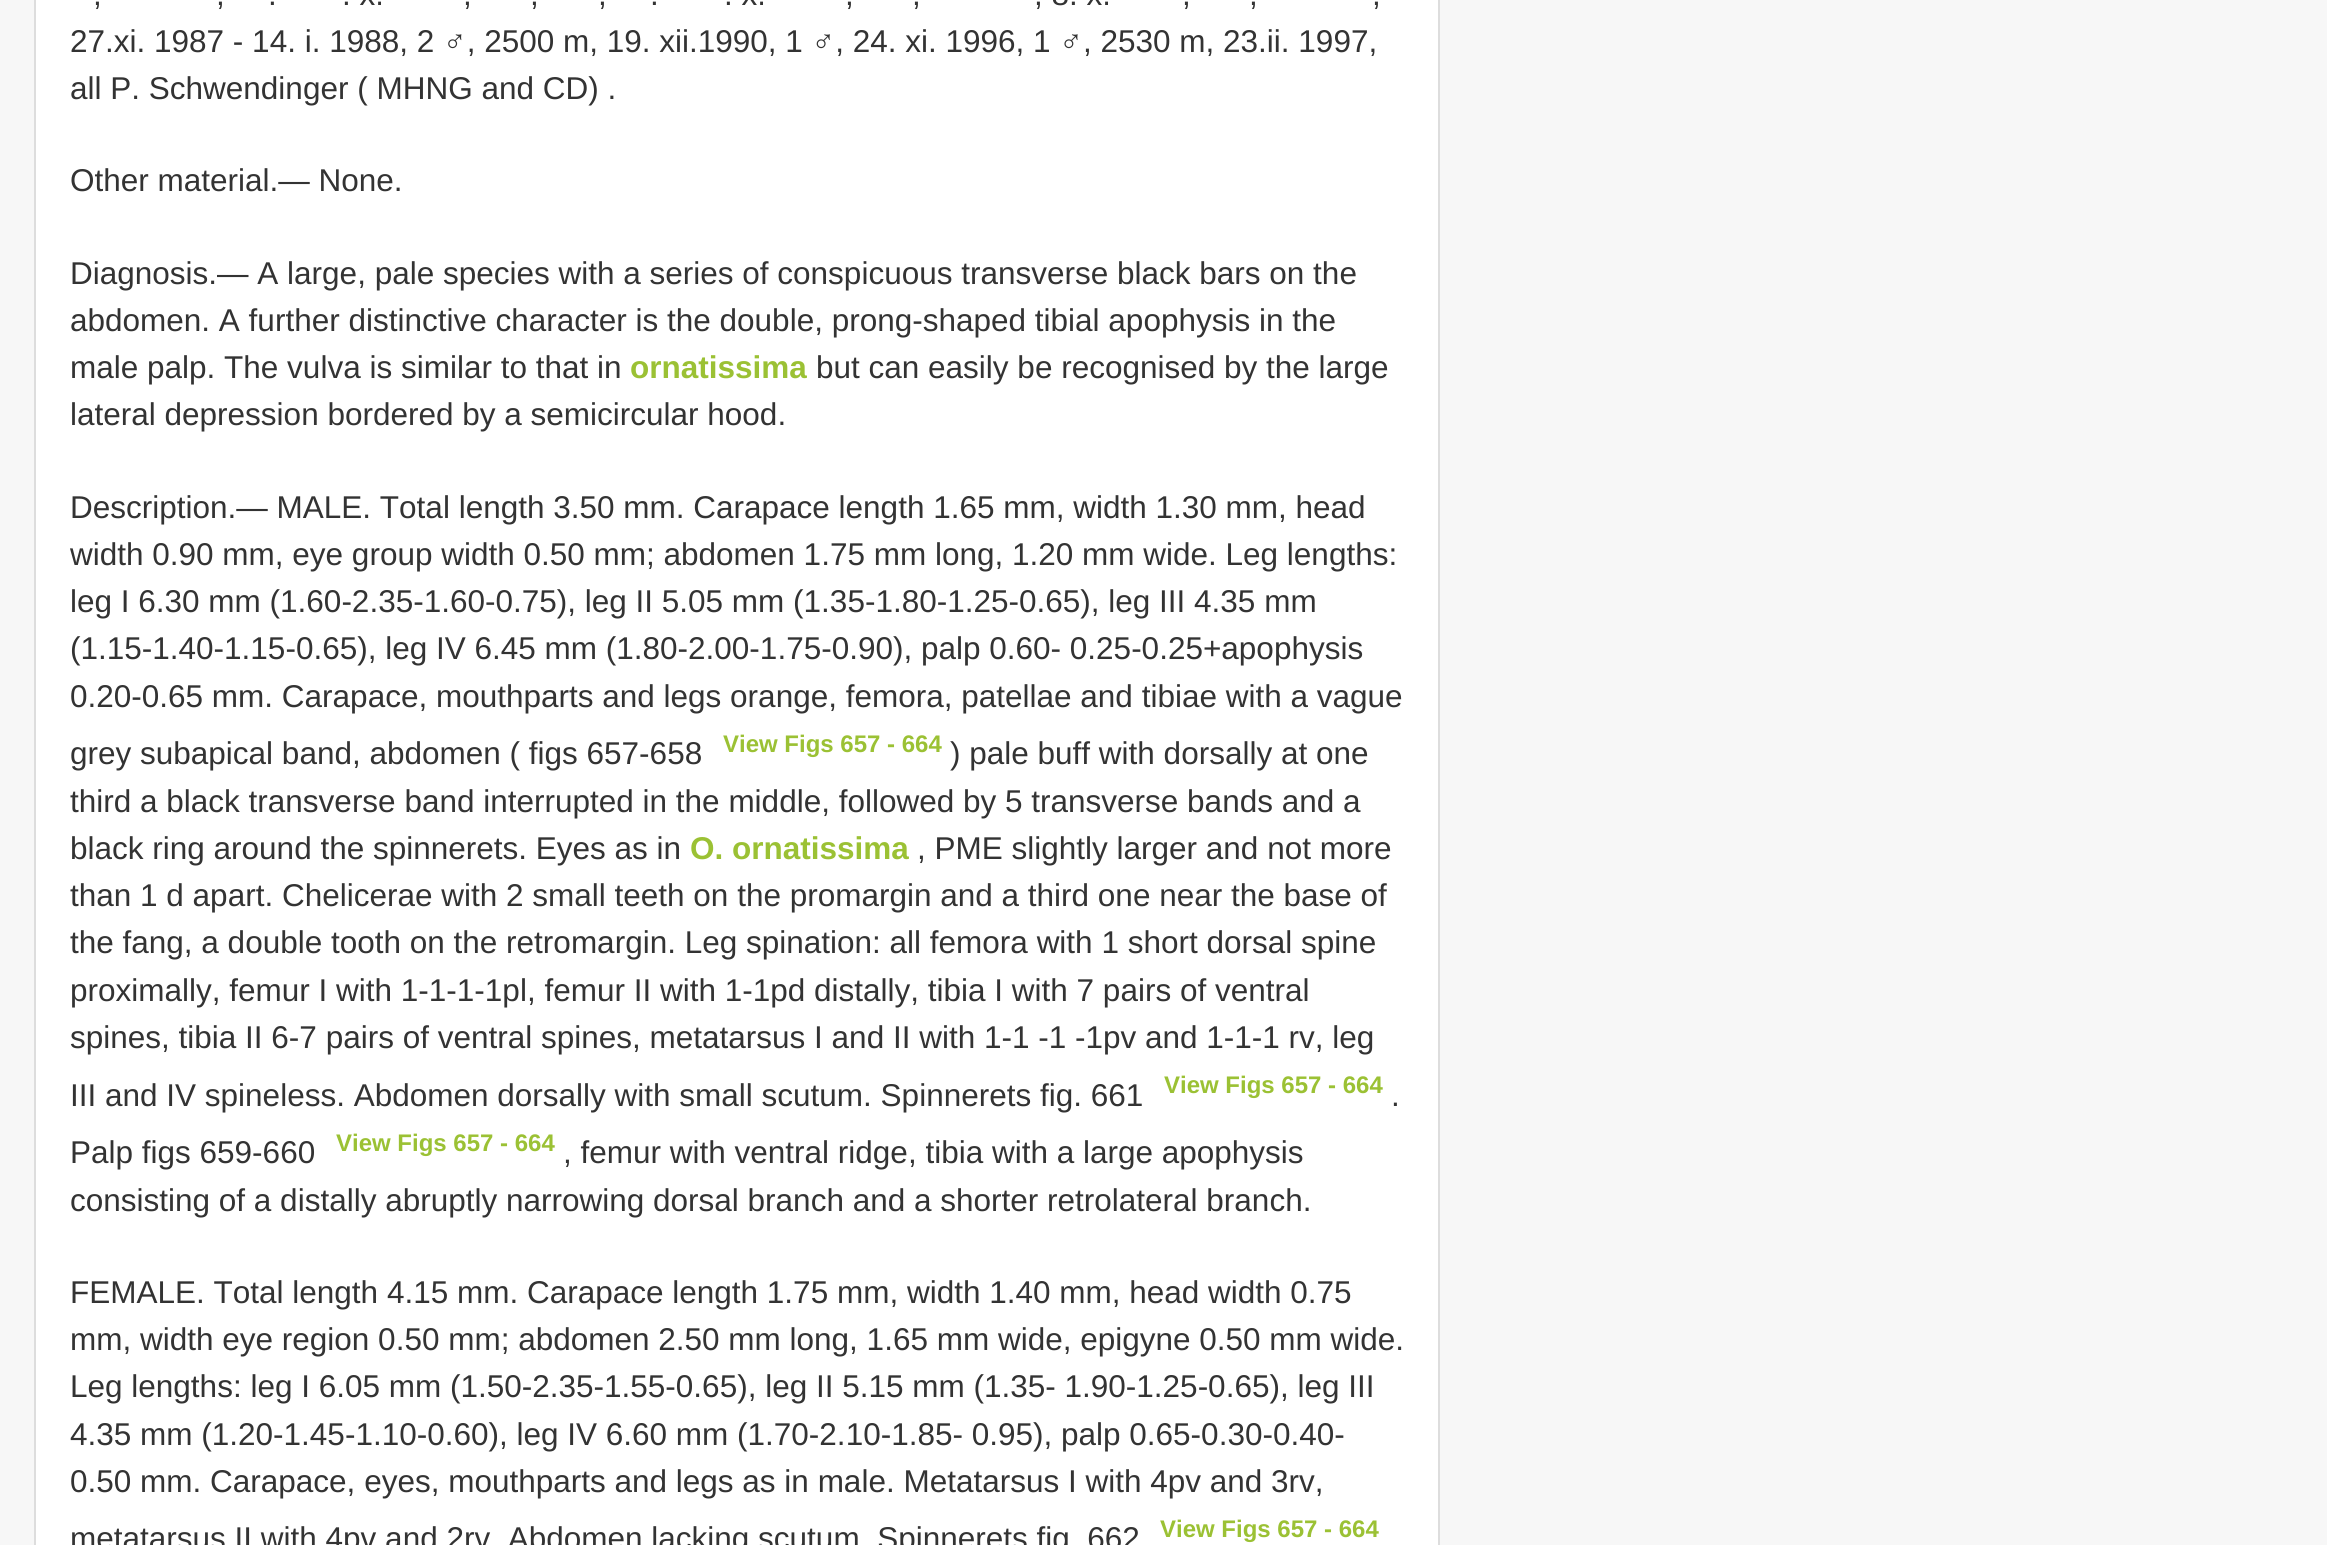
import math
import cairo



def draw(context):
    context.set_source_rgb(247 / 255, 247 / 255, 247 / 255)
    context.paint()
    context.set_source_rgb(1, 1, 1)
    context.rectangle(35, -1, 1404, 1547)
    context.fill_preserve()
    context.set_source_rgb(221 / 255, 221 / 255, 221 / 255)
    context.stroke()
    context.select_font_face("Liberation Sans")
    context.set_font_size(31.5)
    context.set_source_rgb(51 / 255, 51 / 255, 51 / 255)
    context.move_to(93, 5)
    context.show_text(",")
    context.move_to(216, 5)
    context.show_text(",")
    context.move_to(268, 5)
    context.show_text(".")
    context.move_to(342, 5)
    context.show_text(". x.")
    context.move_to(463, 5)
    context.show_text(",")
    context.move_to(530, 5)
    context.show_text(",")
    context.move_to(598, 5)
    context.show_text(",")
    context.move_to(650, 5)
    context.show_text(".")
    context.move_to(724, 5)
    context.show_text(". x.")
    context.move_to(845, 5)
    context.show_text(",")
    context.move_to(912, 5)
    context.show_text(",")
    context.move_to(1034, 5)
    context.show_text(", 8. x.")
    context.move_to(1182, 5)
    context.show_text(",")
    context.move_to(1249, 5)
    context.show_text(",")
    context.move_to(1372, 5)
    context.show_text(",")
    context.move_to(70, 52)
    context.show_text("27.xi. 1987 - 14. i. 1988, 2 ♂, 2500 m, 19. xii.1990, 1 ♂, 24. xi. 1996, 1 ♂, 2530 m, 23.ii. 1997,")
    context.move_to(70, 99)
    context.show_text("all P. Schwendinger ( MHNG and CD) .")
    context.move_to(70, 191)
    context.show_text("Other material.— None.")
    context.move_to(70, 284)
    context.show_text("Diagnosis.— A large, pale species with a series of conspicuous transverse black bars on the")
    context.move_to(70, 331)
    context.show_text("abdomen. A further distinctive character is the double, prong-shaped tibial apophysis in the")
    context.move_to(70, 378)
    context.show_text("male palp. The vulva is similar to that in")
    context.select_font_face("Liberation Sans", cairo.FontSlant.NORMAL, cairo.FontWeight.BOLD)
    context.set_source_rgb(155 / 255, 193 / 255, 52 / 255)
    context.move_to(630, 378)
    context.show_text("ornatissima")
    context.select_font_face("Liberation Sans")
    context.set_source_rgb(51 / 255, 51 / 255, 51 / 255)
    context.move_to(816, 378)
    context.show_text("but can easily be recognised by the large")
    context.move_to(70, 425)
    context.show_text("lateral depression bordered by a semicircular hood.")
    context.move_to(70, 518)
    context.show_text("Description.— MALE. Total length 3.50 mm. Carapace length 1.65 mm, width 1.30 mm, head")
    context.move_to(70, 565)
    context.show_text("width 0.90 mm, eye group width 0.50 mm; abdomen 1.75 mm long, 1.20 mm wide. Leg lengths:")
    context.move_to(70, 612)
    context.show_text("leg I 6.30 mm (1.60-2.35-1.60-0.75), leg II 5.05 mm (1.35-1.80-1.25-0.65), leg III 4.35 mm")
    context.move_to(70, 659)
    context.show_text("(1.15-1.40-1.15-0.65), leg IV 6.45 mm (1.80-2.00-1.75-0.90), palp 0.60- 0.25-0.25+apophysis")
    context.move_to(70, 707)
    context.show_text("0.20-0.65 mm. Carapace, mouthparts and legs orange, femora, patellae and tibiae with a vague")
    context.move_to(70, 764)
    context.show_text("grey subapical band, abdomen ( figs 657-658")
    context.select_font_face("Liberation Sans", cairo.FontSlant.NORMAL, cairo.FontWeight.BOLD)
    context.set_font_size(24)
    context.set_source_rgb(155 / 255, 193 / 255, 52 / 255)
    context.move_to(723, 752)
    context.show_text("View Figs 657 - 664")
    context.select_font_face("Liberation Sans")
    context.set_font_size(31.5)
    context.set_source_rgb(51 / 255, 51 / 255, 51 / 255)
    context.move_to(950, 764)
    context.show_text(") pale buff with dorsally at one")
    context.move_to(70, 812)
    context.show_text("third a black transverse band interrupted in the middle, followed by 5 transverse bands and a")
    context.move_to(70, 859)
    context.show_text("black ring around the spinnerets. Eyes as in")
    context.select_font_face("Liberation Sans", cairo.FontSlant.NORMAL, cairo.FontWeight.BOLD)
    context.set_source_rgb(155 / 255, 193 / 255, 52 / 255)
    context.move_to(690, 859)
    context.show_text("O. ornatissima")
    context.select_font_face("Liberation Sans")
    context.set_source_rgb(51 / 255, 51 / 255, 51 / 255)
    context.move_to(917, 859)
    context.show_text(", PME slightly larger and not more")
    context.move_to(70, 906)
    context.show_text("than 1 d apart. Chelicerae with 2 small teeth on the promargin and a third one near the base of")
    context.move_to(70, 953)
    context.show_text("the fang, a double tooth on the retromargin. Leg spination: all femora with 1 short dorsal spine")
    context.move_to(70, 1001)
    context.show_text("proximally, femur I with 1-1-1-1pl, femur II with 1-1pd distally, tibia I with 7 pairs of ventral")
    context.move_to(70, 1048)
    context.show_text("spines, tibia II 6-7 pairs of ventral spines, metatarsus I and II with 1-1 -1 -1pv and 1-1-1 rv, leg")
    context.move_to(70, 1106)
    context.show_text("III and IV spineless. Abdomen dorsally with small scutum. Spinnerets fig. 661")
    context.select_font_face("Liberation Sans", cairo.FontSlant.NORMAL, cairo.FontWeight.BOLD)
    context.set_font_size(24)
    context.set_source_rgb(155 / 255, 193 / 255, 52 / 255)
    context.move_to(1164, 1093)
    context.show_text("View Figs 657 - 664")
    context.select_font_face("Liberation Sans")
    context.set_font_size(31.5)
    context.set_source_rgb(51 / 255, 51 / 255, 51 / 255)
    context.move_to(1391, 1106)
    context.show_text(".")
    context.move_to(70, 1163)
    context.show_text("Palp figs 659-660")
    context.select_font_face("Liberation Sans", cairo.FontSlant.NORMAL, cairo.FontWeight.BOLD)
    context.set_font_size(24)
    context.set_source_rgb(155 / 255, 193 / 255, 52 / 255)
    context.move_to(336, 1151)
    context.show_text("View Figs 657 - 664")
    context.select_font_face("Liberation Sans")
    context.set_font_size(31.5)
    context.set_source_rgb(51 / 255, 51 / 255, 51 / 255)
    context.move_to(563, 1163)
    context.show_text(", femur with ventral ridge, tibia with a large apophysis")
    context.move_to(70, 1211)
    context.show_text("consisting of a distally abruptly narrowing dorsal branch and a shorter retrolateral branch.")
    context.move_to(70, 1303)
    context.show_text("FEMALE. Total length 4.15 mm. Carapace length 1.75 mm, width 1.40 mm, head width 0.75")
    context.move_to(70, 1350)
    context.show_text("mm, width eye region 0.50 mm; abdomen 2.50 mm long, 1.65 mm wide, epigyne 0.50 mm wide.")
    context.move_to(70, 1397)
    context.show_text("Leg lengths: leg I 6.05 mm (1.50-2.35-1.55-0.65), leg II 5.15 mm (1.35- 1.90-1.25-0.65), leg III")
    context.move_to(70, 1445)
    context.show_text("4.35 mm (1.20-1.45-1.10-0.60), leg IV 6.60 mm (1.70-2.10-1.85- 0.95), palp 0.65-0.30-0.40-")
    context.move_to(70, 1492)
    context.show_text("0.50 mm. Carapace, eyes, mouthparts and legs as in male. Metatarsus I with 4pv and 3rv,")
    context.move_to(70, 1549)
    context.show_text("metatarsus II with 4pv and 2rv. Abdomen lacking scutum. Spinnerets fig. 662")
    context.select_font_face("Liberation Sans", cairo.FontSlant.NORMAL, cairo.FontWeight.BOLD)
    context.set_font_size(24)
    context.set_source_rgb(155 / 255, 193 / 255, 52 / 255)
    context.move_to(1160, 1537)
    context.show_text("View Figs 657 - 664")


surface = cairo.ImageSurface(cairo.Format.RGB24, 2327, 1545)
context = cairo.Context(surface)
options = cairo.FontOptions()
options.set_hint_metrics(cairo.HintMetrics.OFF)
options.set_hint_style(cairo.HintStyle.NONE)
context.set_font_options(options)
context.set_miter_limit(4)
draw(context)
surface.write_to_png("out.png")
